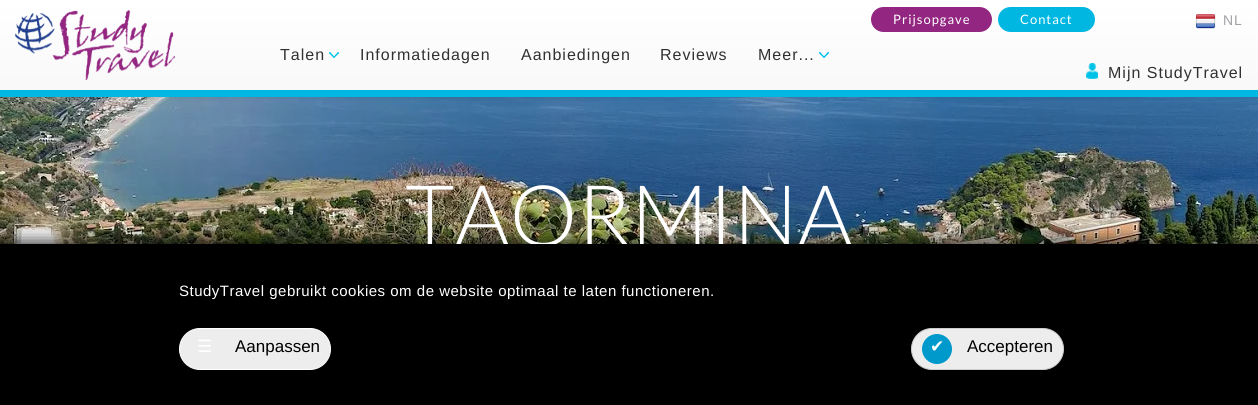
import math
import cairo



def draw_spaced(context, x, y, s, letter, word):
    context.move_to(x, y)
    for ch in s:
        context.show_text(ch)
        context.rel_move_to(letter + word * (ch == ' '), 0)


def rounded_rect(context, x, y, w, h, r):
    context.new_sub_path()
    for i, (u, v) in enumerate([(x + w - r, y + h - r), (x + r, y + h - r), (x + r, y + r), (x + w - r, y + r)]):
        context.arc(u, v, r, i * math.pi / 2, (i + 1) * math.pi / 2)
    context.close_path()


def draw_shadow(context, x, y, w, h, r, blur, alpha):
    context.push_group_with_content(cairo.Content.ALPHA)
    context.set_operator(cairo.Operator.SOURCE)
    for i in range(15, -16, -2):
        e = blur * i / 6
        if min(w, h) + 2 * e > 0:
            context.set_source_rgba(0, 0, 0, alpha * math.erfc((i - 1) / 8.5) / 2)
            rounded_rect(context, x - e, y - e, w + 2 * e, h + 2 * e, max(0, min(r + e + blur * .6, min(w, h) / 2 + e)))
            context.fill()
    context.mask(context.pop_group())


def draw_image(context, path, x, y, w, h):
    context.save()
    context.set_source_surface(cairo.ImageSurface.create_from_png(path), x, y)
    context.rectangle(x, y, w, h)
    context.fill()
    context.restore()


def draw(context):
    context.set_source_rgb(1, 1, 1)
    context.paint()
    draw_image(context, "images/5.png", 0, 97, 1258, 147)
    context.set_source_rgb(0, 0, 0)
    draw_shadow(context, 0, 1, 1258, 97, 0, 2.5, 0.07)
    gradient = cairo.LinearGradient(629, 0, 629, 97)
    gradient.add_color_stop_rgba(0, 1, 1, 1, 1)
    gradient.add_color_stop_rgba(1, 248 / 255, 248 / 255, 248 / 255, 1)
    context.set_source(gradient)
    context.rectangle(0, 0, 1258, 90)
    context.fill()
    context.set_source_rgb(0, 183 / 255, 226 / 255)
    context.rectangle(0, 90, 1258, 7)
    context.fill()
    context.set_source_rgb(147 / 255, 38 / 255, 129 / 255)
    rounded_rect(context, 871, 7, 121, 25, 12.5)
    context.fill()
    context.set_source_rgb(0, 183 / 255, 226 / 255)
    rounded_rect(context, 998, 7, 97, 25, 12.5)
    context.fill()
    draw_image(context, "images/1.png", 1196, 14, 20, 15)
    draw_image(context, "images/2.png", 15, 10, 160, 70)
    draw_image(context, "images/3.png", 329, 52, 10, 6)
    draw_image(context, "images/3.png", 819, 52, 10, 6)
    draw_image(context, "images/4.png", 1086, 63, 12, 16)
    context.set_source_rgb(0, 0, 0)
    draw_shadow(context, 0, 241, 1258, 161, 0, 9, 0.8)
    context.select_font_face("Lato")
    context.set_font_size(13)
    context.set_source_rgb(1, 1, 1)
    draw_spaced(context, 893, 24, "Prijsopgave", 1, 0)
    draw_spaced(context, 1020, 24, "Contact", 1, 0)
    context.select_font_face("Liberation Sans")
    context.set_font_size(14)
    context.set_source_rgb(160 / 255, 161 / 255, 163 / 255)
    draw_spaced(context, 1223, 25, "NL", 1, 0)
    context.set_font_size(16)
    context.set_source_rgb(48 / 255, 49 / 255, 51 / 255)
    draw_spaced(context, 280, 60, "Talen", 1, 0)
    draw_spaced(context, 360, 60, "Informatiedagen", 1, 0)
    draw_spaced(context, 521, 60, "Aanbiedingen", 1, 0)
    draw_spaced(context, 660, 60, "Reviews", 1, 0)
    draw_spaced(context, 758, 60, "Meer...", 1, 0)
    draw_spaced(context, 1108, 78, "Mijn StudyTravel", 1, 0)
    context.select_font_face("Lato Light")
    context.set_font_size(85)
    context.set_source_rgb(1, 1, 1)
    context.move_to(405, 246)
    context.show_text("TAORMINA")
    context.set_source_rgb(0, 0, 0)
    context.rectangle(0, 244, 1258, 161)
    context.fill()
    context.select_font_face("Liberation Sans")
    context.set_font_size(15)
    context.set_source_rgb(1, 1, 1)
    draw_spaced(context, 179, 296, "StudyTravel gebruikt cookies om de website optimaal te laten functioneren.", 0.5, 0)
    context.set_source_rgb(237 / 255, 237 / 255, 237 / 255)
    rounded_rect(context, 179.5, 328.5, 151, 41, 20.5)
    context.fill_preserve()
    context.set_source_rgb(1, 1, 1)
    context.set_line_width(1)
    context.stroke()
    context.select_font_face("DejaVu Sans")
    context.set_font_size(17)
    context.move_to(197, 352)
    context.show_text("☰")
    context.select_font_face("Liberation Sans")
    context.set_source_rgb(0, 0, 0)
    context.move_to(235, 352)
    context.show_text("Aanpassen")
    context.set_source_rgb(237 / 255, 237 / 255, 237 / 255)
    rounded_rect(context, 911.5, 328.5, 152, 41, 20.5)
    context.fill_preserve()
    context.set_source_rgb(204 / 255, 204 / 255, 204 / 255)
    context.stroke()
    context.set_source_rgb(0, 153 / 255, 204 / 255)
    context.arc(937, 349, 15, 0, 2 * math.pi)
    context.fill()
    context.select_font_face("DejaVu Sans")
    context.set_source_rgb(1, 1, 1)
    context.move_to(930, 352)
    context.show_text("✔")
    context.select_font_face("Liberation Sans")
    context.set_source_rgb(0, 0, 0)
    context.move_to(967, 352)
    context.show_text("Accepteren")


surface = cairo.ImageSurface(cairo.Format.RGB24, 1258, 405)
context = cairo.Context(surface)
options = cairo.FontOptions()
options.set_hint_metrics(cairo.HintMetrics.OFF)
options.set_hint_style(cairo.HintStyle.NONE)
context.set_font_options(options)
context.set_miter_limit(4)
draw(context)
surface.write_to_png("out.png")
